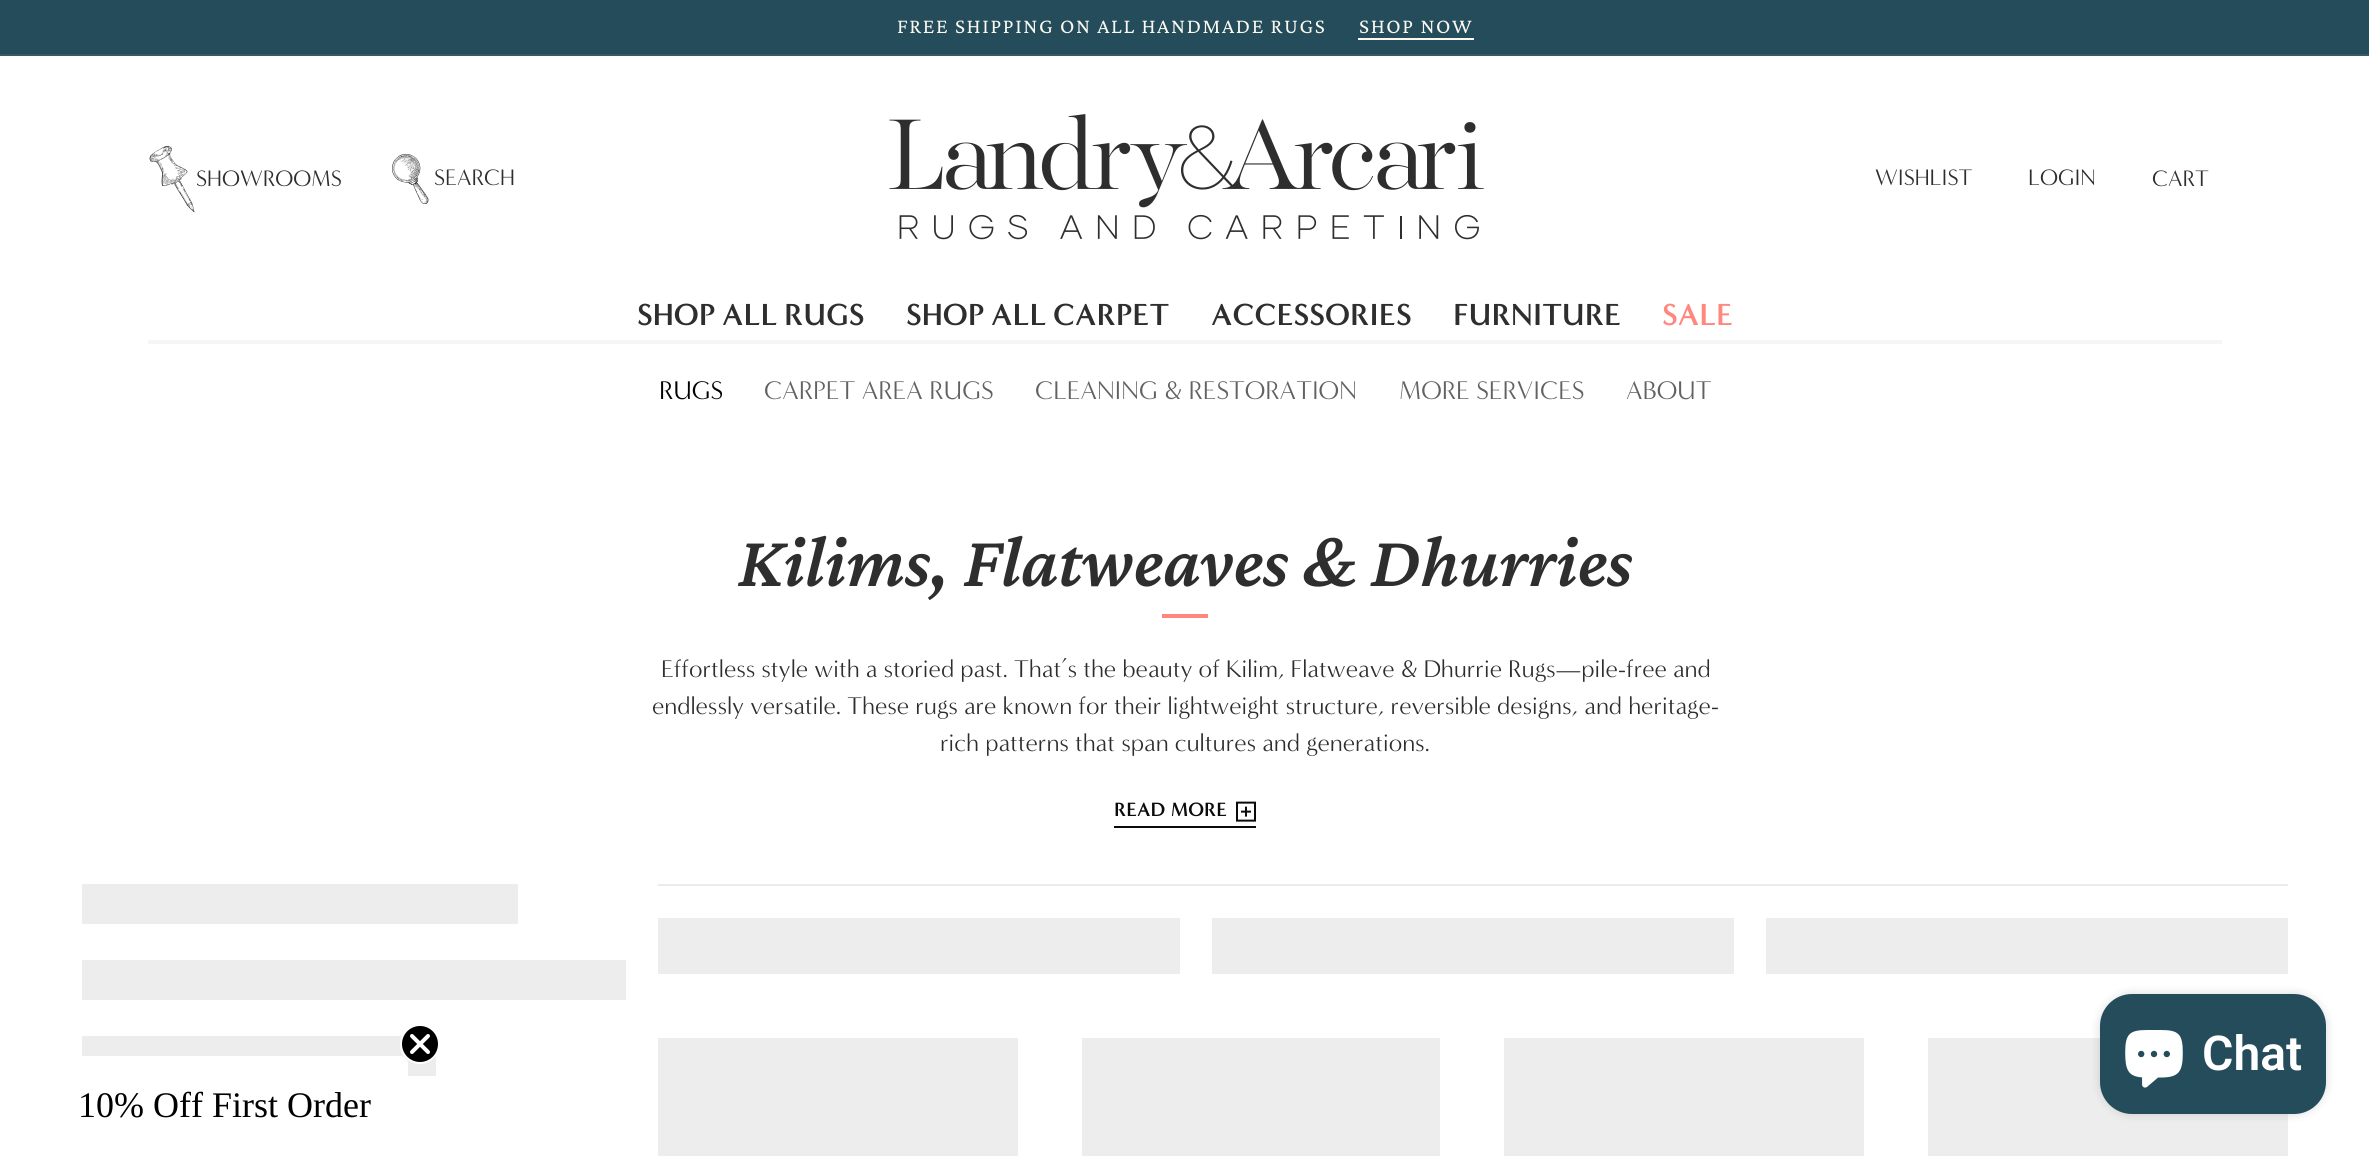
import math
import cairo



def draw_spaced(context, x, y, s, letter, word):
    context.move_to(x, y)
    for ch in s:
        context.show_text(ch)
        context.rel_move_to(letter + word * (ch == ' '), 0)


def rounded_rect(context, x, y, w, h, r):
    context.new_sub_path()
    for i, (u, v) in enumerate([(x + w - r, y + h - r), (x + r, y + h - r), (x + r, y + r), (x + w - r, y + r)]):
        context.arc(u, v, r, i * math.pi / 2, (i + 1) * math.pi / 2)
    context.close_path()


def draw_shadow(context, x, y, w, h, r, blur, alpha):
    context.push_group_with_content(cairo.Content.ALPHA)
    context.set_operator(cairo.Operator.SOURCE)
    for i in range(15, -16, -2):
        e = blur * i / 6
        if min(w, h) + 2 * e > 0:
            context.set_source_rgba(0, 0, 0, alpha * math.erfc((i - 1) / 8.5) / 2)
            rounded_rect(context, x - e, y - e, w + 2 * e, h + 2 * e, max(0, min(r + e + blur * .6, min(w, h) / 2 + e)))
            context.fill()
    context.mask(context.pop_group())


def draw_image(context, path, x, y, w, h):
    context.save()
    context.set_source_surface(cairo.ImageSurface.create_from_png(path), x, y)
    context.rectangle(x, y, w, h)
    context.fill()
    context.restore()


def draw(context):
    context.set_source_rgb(1, 1, 1)
    context.paint()
    context.set_source_rgb(36 / 255, 76 / 255, 90 / 255)
    context.rectangle(0, 0, 2369, 54)
    context.fill()
    context.set_source_rgb(53 / 255, 90 / 255, 102 / 255)
    context.rectangle(0, 54, 2369, 2)
    context.fill()
    context.set_source_rgb(251 / 255, 248 / 255, 241 / 255)
    context.rectangle(1358, 38, 116, 2)
    context.fill()
    draw_image(context, "images/1.png", 149, 146, 46, 67)
    draw_image(context, "images/2.png", 392, 154, 37, 50)
    draw_image(context, "images/3.png", 889, 114, 595, 126)
    context.set_source_rgb(244 / 255, 246 / 255, 247 / 255)
    context.rectangle(148, 340, 2074, 4)
    context.fill()
    context.set_source_rgb(1, 135 / 255, 125 / 255)
    context.rectangle(1162, 614, 46, 4)
    context.fill()
    context.set_source_rgb(11 / 255, 11 / 255, 11 / 255)
    context.rectangle(1114, 826, 142, 2)
    context.fill()
    draw_image(context, "images/4.png", 1236, 801, 20, 21)
    context.set_source_rgb(237 / 255, 237 / 255, 237 / 255)
    context.rectangle(82, 884, 436, 40)
    context.fill()
    context.rectangle(82, 960, 544, 40)
    context.fill()
    context.rectangle(82, 1036, 354, 40)
    context.fill()
    context.set_source_rgb(235 / 255, 235 / 255, 235 / 255)
    context.rectangle(658, 884, 1630, 2)
    context.fill()
    context.set_source_rgb(237 / 255, 237 / 255, 237 / 255)
    context.rectangle(658, 918, 522, 56)
    context.fill()
    context.rectangle(1212, 918, 522, 56)
    context.fill()
    context.rectangle(1766, 918, 522, 56)
    context.fill()
    context.rectangle(658, 1038, 360, 118)
    context.fill()
    context.rectangle(1082, 1038, 358, 118)
    context.fill()
    context.rectangle(1504, 1038, 360, 118)
    context.fill()
    context.rectangle(1928, 1038, 360, 118)
    context.fill()
    context.set_source_rgb(0, 0, 0)
    draw_shadow(context, 2100, 994, 226, 120, 32, 5, 0.15)
    context.set_source_rgb(36 / 255, 76 / 255, 90 / 255)
    rounded_rect(context, 2100, 994, 226, 120, 32)
    context.fill()
    draw_image(context, "images/5.png", 2125, 1030, 58, 58)
    context.set_source_rgb(1, 1, 1)
    context.new_path()
    context.move_to(48, 1056)
    context.line_to(400, 1056)
    context.curve_to(404.5, 1056, 408, 1059.5, 408, 1064)
    context.line_to(408, 1156)
    context.line_to(40, 1156)
    context.line_to(40, 1064)
    context.curve_to(40, 1059.5, 43.5, 1056, 48, 1056)
    context.close_path()
    context.fill()
    context.set_source_rgb(0, 0, 0)
    context.arc(420, 1044, 19, 0, 2 * math.pi)
    context.fill_preserve()
    context.set_source_rgb(1, 1, 1)
    context.stroke()
    context.new_path()
    context.move_to(412, 1036)
    context.line_to(428, 1052)
    context.move_to(412, 1052)
    context.line_to(428, 1036)
    context.close_path()
    context.set_line_width(4)
    context.set_line_cap(cairo.LineCap.ROUND)
    context.set_line_join(cairo.LineJoin.ROUND)
    context.stroke()
    context.select_font_face("Crimson Pro")
    context.set_font_size(21.4)
    context.set_source_rgb(251 / 255, 248 / 255, 241 / 255)
    draw_spaced(context, 897, 33, "FREE SHIPPING ON ALL HANDMADE RUGS", 1.65, 0)
    draw_spaced(context, 1359, 33, "SHOP NOW", 1.65, 0)
    context.select_font_face("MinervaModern")
    context.set_font_size(23)
    context.set_source_rgb(46 / 255, 46 / 255, 46 / 255)
    context.move_to(196, 186)
    context.show_text("SHOWROOMS")
    context.move_to(434, 185)
    context.show_text("SEARCH")
    context.move_to(1875, 185)
    context.show_text("WISHLIST")
    context.move_to(2028, 185)
    context.show_text("LOGIN")
    context.move_to(2152, 186)
    context.show_text("CART")
    context.select_font_face("MinervaModern", cairo.FontSlant.NORMAL, cairo.FontWeight.BOLD)
    context.set_font_size(31.25)
    draw_spaced(context, 637, 325, "SHOP ALL RUGS", 0, -2)
    draw_spaced(context, 906, 325, "SHOP ALL CARPET", 0, -2)
    context.move_to(1211, 325)
    context.show_text("ACCESSORIES")
    context.move_to(1453, 325)
    context.show_text("FURNITURE")
    context.set_source_rgb(1, 135 / 255, 125 / 255)
    context.move_to(1662, 325)
    context.show_text("SALE")
    context.select_font_face("MinervaModern")
    context.set_font_size(26.25)
    context.set_source_rgb(0, 0, 0)
    context.move_to(659, 399)
    context.show_text("RUGS")
    context.set_source_rgb(98 / 255, 98 / 255, 98 / 255)
    context.move_to(764, 399)
    context.show_text("CARPET AREA RUGS")
    context.move_to(1035, 399)
    context.show_text("CLEANING & RESTORATION")
    context.move_to(1399, 399)
    context.show_text("MORE SERVICES")
    context.move_to(1626, 399)
    context.show_text("ABOUT")
    context.select_font_face("Crimson Pro SemiBold", cairo.FontSlant.ITALIC)
    context.set_font_size(74)
    context.set_source_rgb(46 / 255, 46 / 255, 46 / 255)
    context.move_to(738, 586)
    context.show_text("Kilims, Flatweaves & Dhurries")
    context.select_font_face("MinervaModern")
    context.set_font_size(24.7)
    context.move_to(661, 677)
    context.show_text("Effortless style with a storied past. That’s the beauty of Kilim, Flatweave & Dhurrie Rugs—pile-free and")
    context.move_to(652, 714)
    context.show_text("endlessly versatile. These rugs are known for their lightweight structure, reversible designs, and heritage-")
    context.move_to(940, 751)
    context.show_text("rich patterns that span cultures and generations.")
    context.select_font_face("MinervaModern", cairo.FontSlant.NORMAL, cairo.FontWeight.BOLD)
    context.set_font_size(19.75)
    context.set_source_rgb(11 / 255, 11 / 255, 11 / 255)
    context.move_to(1114, 816)
    context.show_text("READ MORE")
    context.select_font_face("Roboto SemiBold")
    context.set_font_size(48)
    context.set_source_rgb(1, 1, 1)
    context.move_to(2202, 1070)
    context.show_text("Chat")
    context.select_font_face("Liberation Serif")
    context.set_font_size(36)
    context.set_source_rgb(0, 0, 0)
    context.move_to(78, 1117)
    context.show_text("10% Off First Order")


surface = cairo.ImageSurface(cairo.Format.RGB24, 2369, 1156)
context = cairo.Context(surface)
options = cairo.FontOptions()
options.set_hint_metrics(cairo.HintMetrics.OFF)
options.set_hint_style(cairo.HintStyle.NONE)
context.set_font_options(options)
context.set_miter_limit(4)
draw(context)
surface.write_to_png("out.png")
